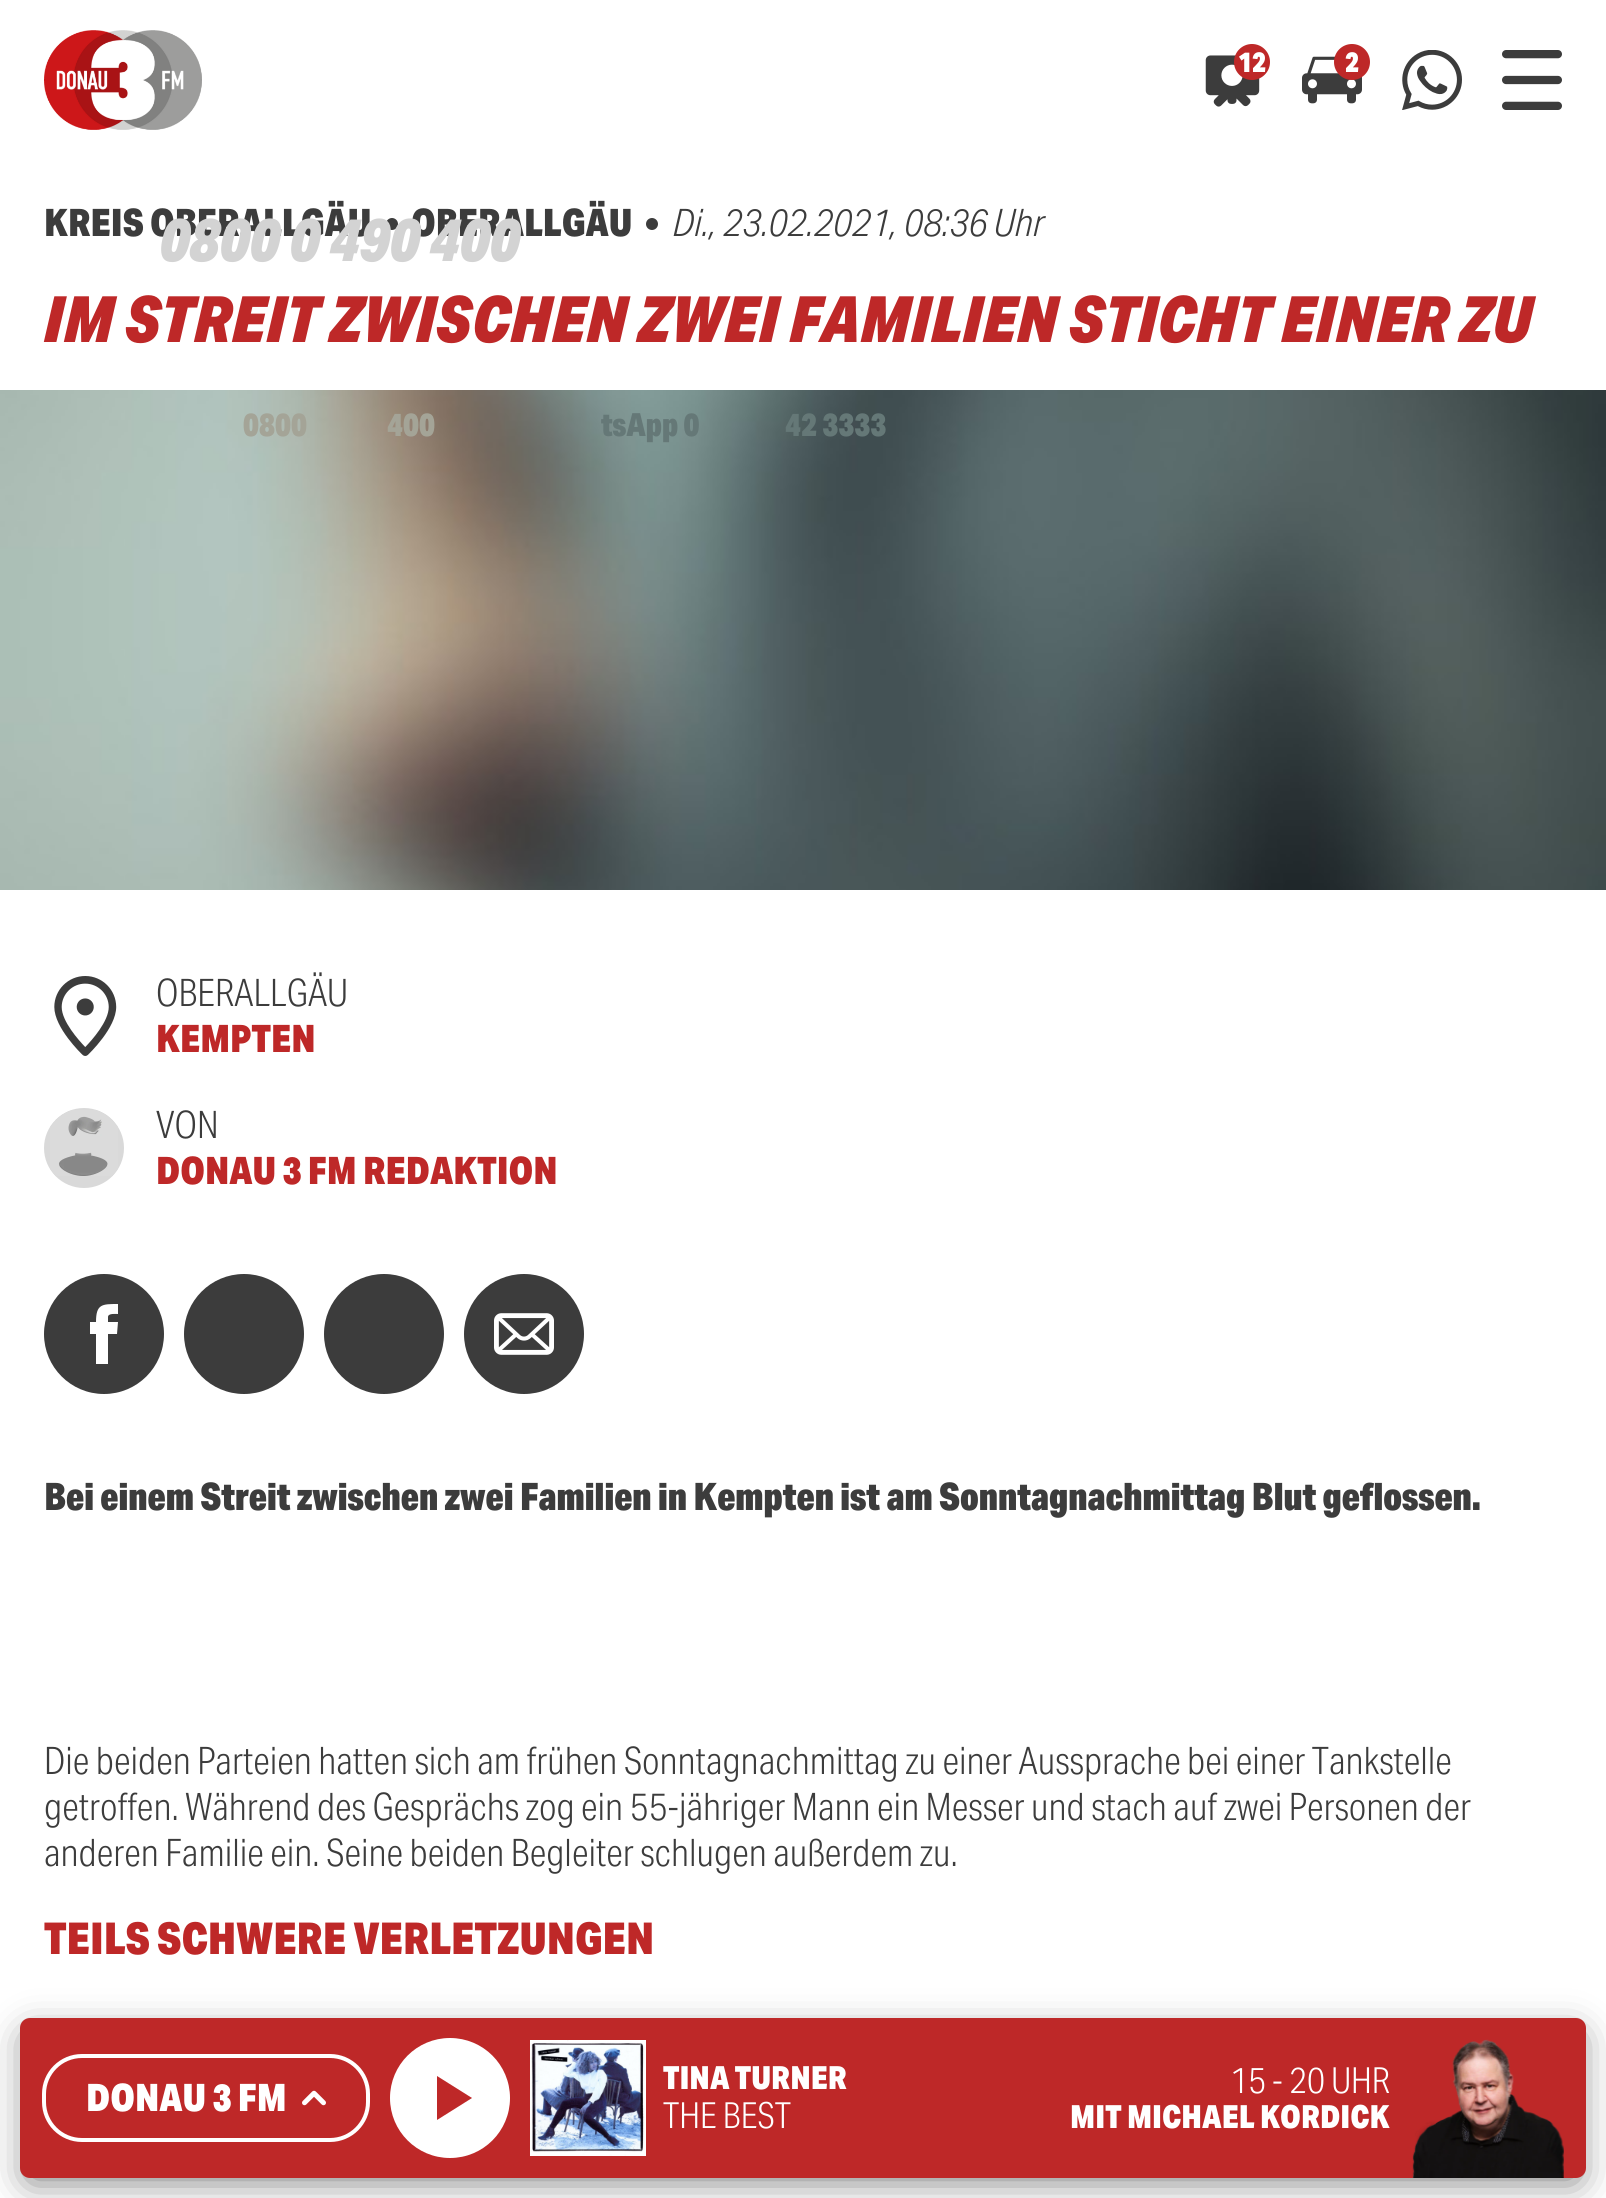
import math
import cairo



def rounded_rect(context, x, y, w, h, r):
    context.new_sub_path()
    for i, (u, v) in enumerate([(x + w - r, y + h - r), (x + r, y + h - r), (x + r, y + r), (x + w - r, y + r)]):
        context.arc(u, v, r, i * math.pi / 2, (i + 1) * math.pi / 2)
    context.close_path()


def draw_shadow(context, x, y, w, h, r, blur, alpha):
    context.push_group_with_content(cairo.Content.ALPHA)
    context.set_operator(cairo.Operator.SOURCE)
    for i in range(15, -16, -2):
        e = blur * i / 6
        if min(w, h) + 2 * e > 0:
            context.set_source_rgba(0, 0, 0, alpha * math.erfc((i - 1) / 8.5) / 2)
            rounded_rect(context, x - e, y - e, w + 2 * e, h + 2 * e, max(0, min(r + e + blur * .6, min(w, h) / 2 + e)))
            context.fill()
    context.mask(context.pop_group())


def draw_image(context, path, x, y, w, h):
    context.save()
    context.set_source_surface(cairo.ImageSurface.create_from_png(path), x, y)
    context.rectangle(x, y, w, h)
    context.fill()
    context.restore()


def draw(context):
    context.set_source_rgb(1, 1, 1)
    context.paint()
    draw_image(context, "images/1.png", 44, 30, 158, 100)
    draw_image(context, "images/2.png", 1205, 55, 55, 52)
    context.set_source_rgb(190 / 255, 40 / 255, 40 / 255)
    context.arc(1252, 62, 18, 0, 2 * math.pi)
    context.fill()
    draw_image(context, "images/3.png", 1302, 56, 60, 48)
    context.arc(1352, 62, 18, 0, 2 * math.pi)
    context.fill()
    draw_image(context, "images/4.png", 1402, 50, 60, 60)
    draw_image(context, "images/5.png", 1502, 50, 60, 60)
    context.set_source_rgb(60 / 255, 60 / 255, 60 / 255)
    context.arc(392, 224, 6, 0, 2 * math.pi)
    context.fill()
    context.arc(652, 224, 6, 0, 2 * math.pi)
    context.fill()
    draw_image(context, "images/6.png", 0, 390, 1606, 500)
    draw_image(context, "images/7.png", 54, 976, 63, 80)
    context.set_source_rgb(217 / 255, 217 / 255, 217 / 255)
    context.arc(84, 1148, 40, 0, 2 * math.pi)
    context.fill()
    draw_image(context, "images/8.png", 50, 1110, 68, 66)
    context.set_source_rgb(60 / 255, 60 / 255, 60 / 255)
    context.arc(104, 1334, 60, 0, 2 * math.pi)
    context.fill()
    context.set_source_rgb(1, 1, 1)
    context.new_path()
    context.move_to(108, 1317)
    context.curve_to(108, 1313, 116, 1314, 118, 1314)
    context.line_to(118, 1304)
    context.curve_to(102, 1304, 96, 1304, 96, 1322)
    context.line_to(90, 1322)
    context.line_to(90, 1334)
    context.line_to(96, 1334)
    context.line_to(96, 1364)
    context.line_to(108, 1364)
    context.line_to(108, 1334)
    context.line_to(117, 1334)
    context.line_to(118, 1322)
    context.line_to(108, 1322)
    context.close_path()
    context.fill()
    context.set_source_rgb(60 / 255, 60 / 255, 60 / 255)
    context.arc(244, 1334, 60, 0, 2 * math.pi)
    context.fill()
    context.arc(384, 1334, 60, 0, 2 * math.pi)
    context.fill()
    context.arc(524, 1334, 60, 0, 2 * math.pi)
    context.fill()
    draw_image(context, "images/9.png", 494, 1313, 60, 42)
    context.set_source_rgb(0, 0, 0)
    draw_shadow(context, 30, 2038, 1546, 140, 0, 20, 0.6)
    context.set_source_rgb(190 / 255, 40 / 255, 40 / 255)
    rounded_rect(context, 20, 2018, 1566, 160, 10)
    context.fill()
    rounded_rect(context, 44, 2056, 324, 84, 38)
    context.set_source_rgb(1, 1, 1)
    context.set_line_width(4)
    context.stroke()
    draw_image(context, "images/10.png", 302, 2090, 24, 16)
    context.arc(450, 2098, 60, 0, 2 * math.pi)
    context.fill()
    context.set_source_rgb(190 / 255, 40 / 255, 40 / 255)
    context.new_path()
    context.move_to(437, 2076)
    context.line_to(472, 2098)
    context.line_to(437, 2120)
    context.close_path()
    context.fill()
    draw_image(context, "images/11.png", 530, 2040, 116, 116)
    draw_image(context, "images/12.png", 1412, 2039, 152, 139)
    context.select_font_face("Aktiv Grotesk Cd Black")
    context.set_font_size(28)
    context.set_source_rgb(1, 1, 1)
    context.move_to(1238, 72)
    context.show_text("12")
    context.move_to(1345, 72)
    context.show_text("2")
    context.set_font_size(32)
    context.set_source_rgb(164 / 255, 164 / 255, 151 / 255)
    context.move_to(243, 436)
    context.show_text("0800")
    context.move_to(387, 436)
    context.show_text("400")
    context.set_source_rgb(101 / 255, 120 / 255, 119 / 255)
    context.move_to(601, 436)
    context.show_text("tsApp 0")
    context.move_to(785, 436)
    context.show_text("42 3333")
    context.set_font_size(38)
    context.set_source_rgb(60 / 255, 60 / 255, 60 / 255)
    context.move_to(44, 236)
    context.show_text("KREIS OBERALLGÄU")
    context.move_to(411, 236)
    context.show_text("OBERALLGÄU")
    context.select_font_face("Aktiv Grotesk Cd Black", cairo.FontSlant.ITALIC)
    context.set_font_size(60)
    context.set_source_rgb(211 / 255, 211 / 255, 211 / 255)
    context.move_to(160, 261)
    context.show_text("0800 0 490 400")
    context.select_font_face("Aktiv Grotesk Cd Light", cairo.FontSlant.ITALIC)
    context.set_font_size(38)
    context.set_source_rgb(60 / 255, 60 / 255, 60 / 255)
    context.move_to(673, 236)
    context.show_text("Di., 23.02.2021, 08:36 Uhr")
    context.select_font_face("Aktiv Grotesk Cd Black", cairo.FontSlant.ITALIC)
    context.set_font_size(64)
    context.set_source_rgb(190 / 255, 40 / 255, 40 / 255)
    context.move_to(44, 342)
    context.show_text("IM STREIT ZWISCHEN ZWEI FAMILIEN STICHT EINER ZU")
    context.select_font_face("Aktiv Grotesk Cd Light")
    context.set_font_size(38)
    context.set_source_rgb(60 / 255, 60 / 255, 60 / 255)
    context.move_to(156, 1006)
    context.show_text("OBERALLGÄU")
    context.select_font_face("Aktiv Grotesk Cd Black")
    context.set_source_rgb(190 / 255, 40 / 255, 40 / 255)
    context.move_to(156, 1052)
    context.show_text("KEMPTEN")
    context.select_font_face("Aktiv Grotesk Cd Light")
    context.set_source_rgb(60 / 255, 60 / 255, 60 / 255)
    context.move_to(156, 1138)
    context.show_text("VON")
    context.select_font_face("Aktiv Grotesk Cd Black")
    context.set_source_rgb(190 / 255, 40 / 255, 40 / 255)
    context.move_to(156, 1184)
    context.show_text("DONAU 3 FM REDAKTION")
    context.set_source_rgb(60 / 255, 60 / 255, 60 / 255)
    context.move_to(44, 1510)
    context.show_text("Bei einem Streit zwischen zwei Familien in Kempten ist am Sonntagnachmittag Blut geflossen.")
    context.select_font_face("Aktiv Grotesk Cd Light")
    context.move_to(44, 1774)
    context.show_text("Die beiden Parteien hatten sich am frühen Sonntagnachmittag zu einer Aussprache bei einer Tankstelle")
    context.move_to(44, 1820)
    context.show_text("getroffen. Während des Gesprächs zog ein 55-jähriger Mann ein Messer und stach auf zwei Personen der")
    context.move_to(44, 1866)
    context.show_text("anderen Familie ein. Seine beiden Begleiter schlugen außerdem zu.")
    context.select_font_face("Aktiv Grotesk Cd Black")
    context.set_font_size(44)
    context.set_source_rgb(190 / 255, 40 / 255, 40 / 255)
    context.move_to(44, 1954)
    context.show_text("TEILS SCHWERE VERLETZUNGEN")
    context.set_font_size(38)
    context.set_source_rgb(1, 1, 1)
    context.move_to(86, 2111)
    context.show_text("DONAU 3 FM")
    context.set_font_size(32)
    context.move_to(663, 2089)
    context.show_text("TINA TURNER")
    context.select_font_face("Aktiv Grotesk Cd Light")
    context.set_font_size(36)
    context.move_to(663, 2128)
    context.show_text("THE BEST")
    context.move_to(1230, 2093)
    context.show_text("15 - 20 UHR")
    context.select_font_face("Aktiv Grotesk Cd Black")
    context.set_font_size(32)
    context.move_to(1070, 2128)
    context.show_text("MIT MICHAEL KORDICK")


surface = cairo.ImageSurface(cairo.Format.RGB24, 1606, 2198)
context = cairo.Context(surface)
options = cairo.FontOptions()
options.set_hint_metrics(cairo.HintMetrics.OFF)
options.set_hint_style(cairo.HintStyle.NONE)
context.set_font_options(options)
context.set_miter_limit(4)
draw(context)
surface.write_to_png("out.png")
